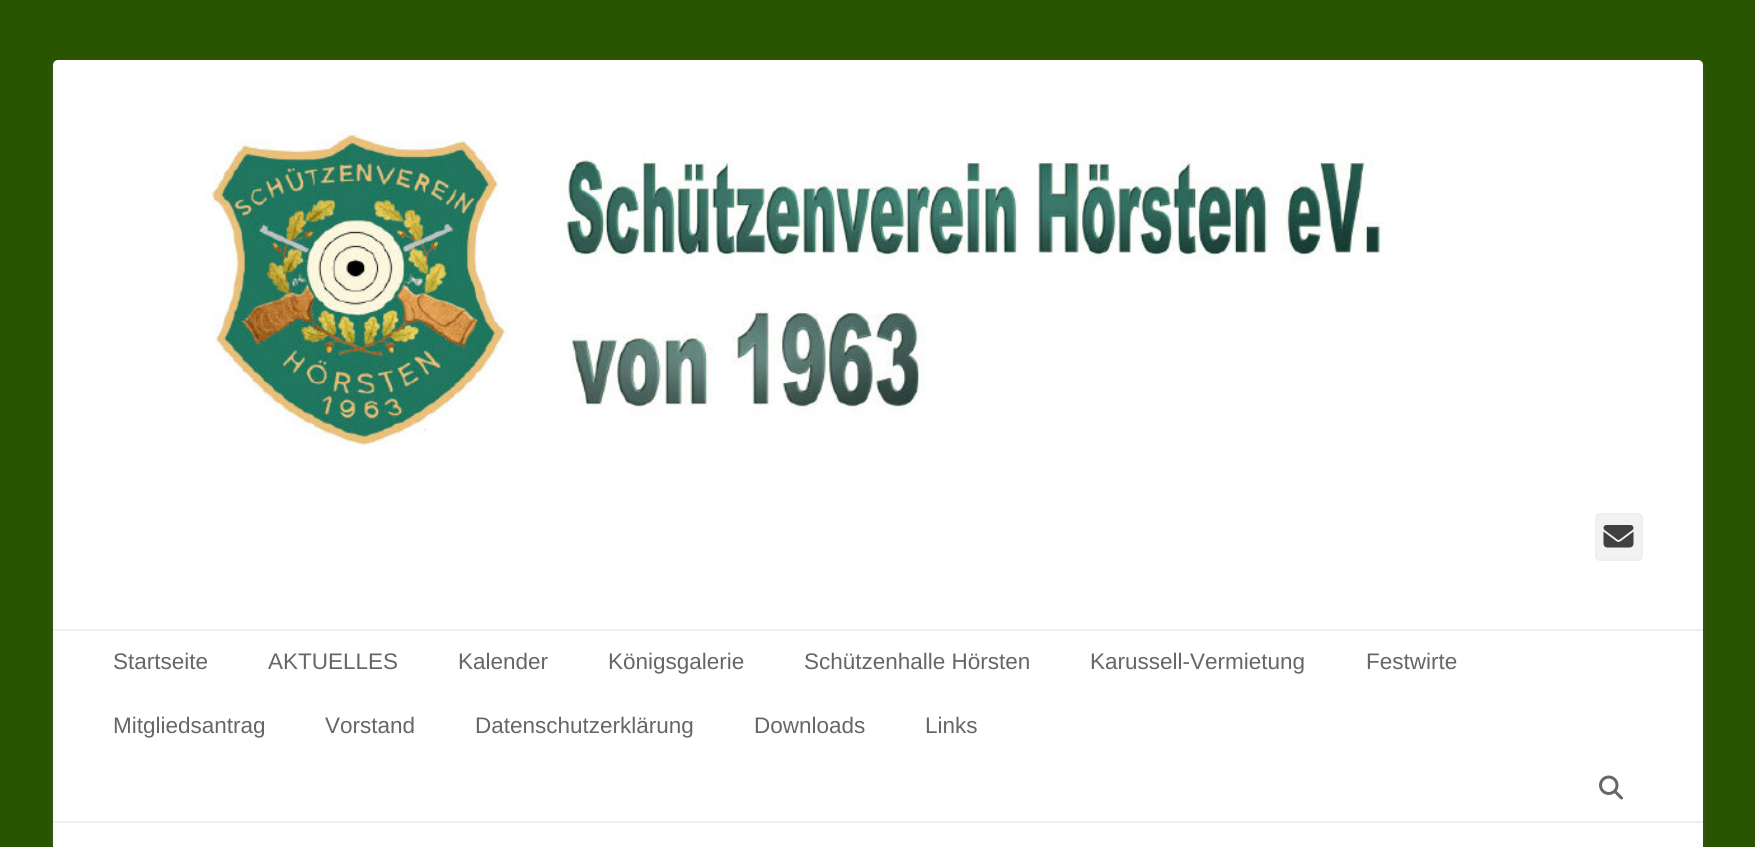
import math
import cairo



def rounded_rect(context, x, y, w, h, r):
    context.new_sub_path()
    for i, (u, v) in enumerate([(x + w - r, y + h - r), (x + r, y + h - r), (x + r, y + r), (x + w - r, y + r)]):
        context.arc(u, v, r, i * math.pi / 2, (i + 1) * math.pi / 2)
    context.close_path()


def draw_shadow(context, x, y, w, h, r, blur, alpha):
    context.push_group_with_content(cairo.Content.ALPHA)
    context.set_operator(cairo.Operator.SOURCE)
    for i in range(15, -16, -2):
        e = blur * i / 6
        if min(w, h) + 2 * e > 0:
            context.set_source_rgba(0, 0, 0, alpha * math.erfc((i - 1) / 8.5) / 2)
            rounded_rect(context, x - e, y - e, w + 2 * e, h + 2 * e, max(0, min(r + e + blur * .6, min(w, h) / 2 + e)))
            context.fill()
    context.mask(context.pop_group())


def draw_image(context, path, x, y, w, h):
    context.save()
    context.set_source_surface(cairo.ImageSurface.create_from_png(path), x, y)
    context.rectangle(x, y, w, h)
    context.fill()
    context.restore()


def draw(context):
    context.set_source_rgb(40 / 255, 84 / 255, 0)
    context.paint()
    context.set_source_rgb(100 / 255, 100 / 255, 100 / 255)
    draw_shadow(context, 53, 63, 1650, 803, 5, 4.5, 0.3)
    context.set_source_rgb(1, 1, 1)
    rounded_rect(context, 53, 60, 1650, 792, 5)
    context.fill()
    draw_image(context, "images/1.png", 204, 130, 1180, 316)
    context.set_source_rgb(242 / 255, 242 / 255, 242 / 255)
    rounded_rect(context, 1596, 514, 46, 46, 4)
    context.fill_preserve()
    context.set_source_rgb(238 / 255, 238 / 255, 238 / 255)
    context.stroke()
    draw_image(context, "images/2.png", 1603, 525, 31, 23)
    context.rectangle(53, 629, 1650, 2)
    context.fill()
    context.rectangle(53, 821, 1650, 2)
    context.fill()
    draw_image(context, "images/3.png", 1599, 775, 24, 25)
    context.select_font_face("Liberation Sans")
    context.set_font_size(22.5)
    context.set_source_rgb(102 / 255, 102 / 255, 102 / 255)
    context.move_to(113, 669)
    context.show_text("Startseite")
    context.move_to(268, 669)
    context.show_text("AKTUELLES")
    context.move_to(458, 669)
    context.show_text("Kalender")
    context.move_to(608, 669)
    context.show_text("Königsgalerie")
    context.move_to(804, 669)
    context.show_text("Schützenhalle Hörsten")
    context.move_to(1090, 669)
    context.show_text("Karussell-Vermietung")
    context.move_to(1366, 669)
    context.show_text("Festwirte")
    context.move_to(113, 733)
    context.show_text("Mitgliedsantrag")
    context.move_to(325, 733)
    context.show_text("Vorstand")
    context.move_to(475, 733)
    context.show_text("Datenschutzerklärung")
    context.move_to(754, 733)
    context.show_text("Downloads")
    context.move_to(925, 733)
    context.show_text("Links")


surface = cairo.ImageSurface(cairo.Format.RGB24, 1755, 847)
context = cairo.Context(surface)
options = cairo.FontOptions()
options.set_hint_metrics(cairo.HintMetrics.OFF)
options.set_hint_style(cairo.HintStyle.NONE)
context.set_font_options(options)
context.set_miter_limit(4)
draw(context)
surface.write_to_png("out.png")
